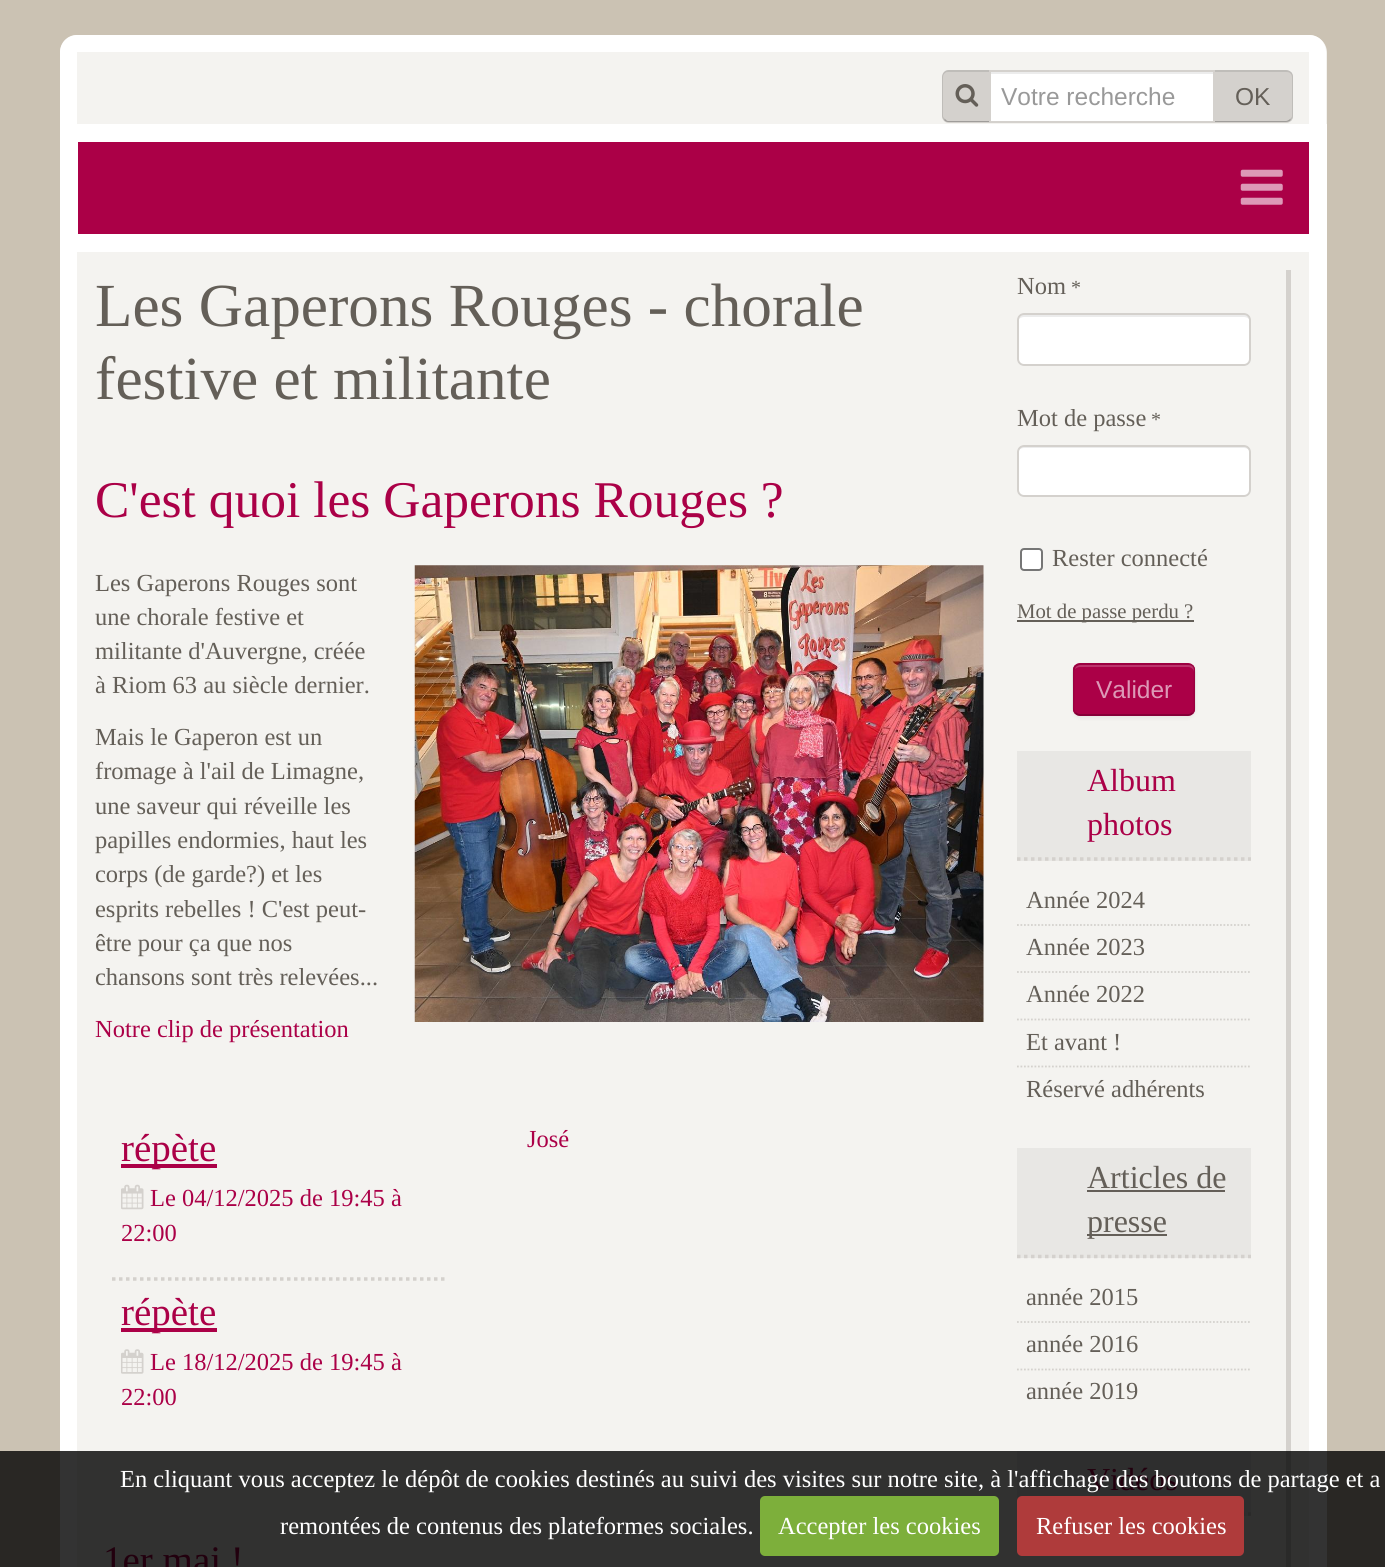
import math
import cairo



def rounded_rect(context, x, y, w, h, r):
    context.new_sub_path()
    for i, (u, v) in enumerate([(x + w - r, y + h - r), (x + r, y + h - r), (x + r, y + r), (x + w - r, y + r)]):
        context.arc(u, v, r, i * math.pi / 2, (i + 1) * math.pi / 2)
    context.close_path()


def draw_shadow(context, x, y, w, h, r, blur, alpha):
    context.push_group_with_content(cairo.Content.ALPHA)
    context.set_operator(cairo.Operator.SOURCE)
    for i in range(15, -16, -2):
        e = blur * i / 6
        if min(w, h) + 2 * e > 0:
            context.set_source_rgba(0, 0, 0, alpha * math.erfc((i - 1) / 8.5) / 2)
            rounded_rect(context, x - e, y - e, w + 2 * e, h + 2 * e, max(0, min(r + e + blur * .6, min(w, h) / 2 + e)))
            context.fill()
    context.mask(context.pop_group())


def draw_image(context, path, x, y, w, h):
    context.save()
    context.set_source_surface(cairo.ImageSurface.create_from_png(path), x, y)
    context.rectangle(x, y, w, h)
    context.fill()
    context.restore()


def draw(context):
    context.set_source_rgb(203 / 255, 194 / 255, 179 / 255)
    context.paint()
    context.set_source_rgb(41 / 255, 39 / 255, 36 / 255)
    context.rectangle(0, 1451, 1385, 116)
    context.fill()
    context.set_source_rgb(244 / 255, 243 / 255, 240 / 255)
    context.new_path()
    context.move_to(78, 35)
    context.line_to(1309, 35)
    context.curve_to(1319, 35, 1327, 43, 1327, 53)
    context.line_to(1327, 124)
    context.line_to(60, 124)
    context.line_to(60, 53)
    context.curve_to(60, 43, 68, 35, 78, 35)
    context.close_path()
    context.fill()
    context.set_source_rgb(1, 1, 1)
    context.set_fill_rule(cairo.FillRule.EVEN_ODD)
    context.new_path()
    context.move_to(77, 35)
    context.line_to(1309, 35)
    context.curve_to(1319, 35, 1326, 43, 1326, 52)
    context.line_to(1326, 124)
    context.line_to(60, 124)
    context.line_to(60, 52)
    context.curve_to(60, 43, 67, 35, 77, 35)
    context.close_path()
    context.move_to(77, 52)
    context.line_to(1309, 52)
    context.line_to(1309, 124)
    context.line_to(77, 124)
    context.close_path()
    context.fill()
    context.set_source_rgb(212 / 255, 209 / 255, 205 / 255)
    context.new_path()
    context.move_to(949, 70)
    context.line_to(991, 70)
    context.line_to(991, 123)
    context.line_to(949, 123)
    context.curve_to(945, 123, 942, 120, 942, 116)
    context.line_to(942, 77)
    context.curve_to(942, 73, 945, 70, 949, 70)
    context.close_path()
    context.fill()
    context.set_source_rgba(0, 0, 0, 0.1)
    context.set_fill_rule(cairo.FillRule.WINDING)
    context.new_path()
    context.move_to(948, 70)
    context.curve_to(946, 70, 945, 71, 944, 72)
    context.line_to(945, 73)
    context.curve_to(946, 72, 947, 72, 948, 72)
    context.line_to(988, 72)
    context.line_to(990, 70)
    context.close_path()
    context.fill()
    context.new_path()
    context.move_to(990, 70)
    context.line_to(990, 122)
    context.line_to(989, 121)
    context.line_to(989, 72)
    context.line_to(988, 72)
    context.close_path()
    context.fill()
    context.set_source_rgba(0, 0, 0, 0.25)
    context.new_path()
    context.move_to(990, 122)
    context.line_to(989, 121)
    context.line_to(948, 121)
    context.curve_to(947, 121, 946, 120, 945, 119)
    context.line_to(944, 120)
    context.curve_to(945, 121, 946, 122, 948, 122)
    context.close_path()
    context.fill()
    context.set_source_rgba(0, 0, 0, 0.1)
    context.new_path()
    context.move_to(944, 72)
    context.curve_to(943, 73, 942, 75, 942, 77)
    context.line_to(942, 116)
    context.curve_to(942, 118, 943, 119, 944, 120)
    context.line_to(945, 119)
    context.curve_to(944, 118, 943, 117, 943, 116)
    context.line_to(943, 77)
    context.curve_to(943, 75, 944, 74, 945, 73)
    context.close_path()
    context.fill()
    draw_image(context, "images/1.png", 955, 84, 24, 23)
    context.set_source_rgb(1, 1, 1)
    context.rectangle(991, 74, 222, 47)
    context.fill()
    context.set_source_rgb(236 / 255, 236 / 255, 236 / 255)
    context.rectangle(991, 72, 222, 2)
    context.fill()
    context.set_source_rgb(212 / 255, 209 / 255, 205 / 255)
    context.new_path()
    context.move_to(1213, 70)
    context.line_to(1286, 70)
    context.curve_to(1290, 70, 1293, 73, 1293, 77)
    context.line_to(1293, 116)
    context.curve_to(1293, 120, 1290, 123, 1286, 123)
    context.line_to(1213, 123)
    context.close_path()
    context.fill()
    context.save()
    context.new_path()
    context.move_to(1213, 70)
    context.line_to(1286, 70)
    context.curve_to(1290, 70, 1293, 73, 1293, 77)
    context.line_to(1293, 116)
    context.curve_to(1293, 120, 1290, 123, 1286, 123)
    context.line_to(1213, 123)
    context.close_path()
    context.clip()
    context.rectangle(1215, 72, 78, 49)
    context.fill()
    context.restore()
    context.set_source_rgba(0, 0, 0, 0.1)
    context.new_path()
    context.move_to(1213, 70)
    context.line_to(1215, 72)
    context.line_to(1286, 72)
    context.curve_to(1287, 72, 1289, 72, 1290, 73)
    context.line_to(1291, 72)
    context.curve_to(1290, 71, 1288, 70, 1286, 70)
    context.close_path()
    context.fill()
    context.new_path()
    context.move_to(1291, 72)
    context.curve_to(1292, 73, 1293, 75, 1293, 77)
    context.line_to(1293, 116)
    context.curve_to(1293, 118, 1292, 119, 1291, 120)
    context.line_to(1290, 119)
    context.curve_to(1291, 118, 1292, 117, 1292, 116)
    context.line_to(1292, 77)
    context.curve_to(1292, 75, 1291, 74, 1290, 73)
    context.close_path()
    context.fill()
    context.set_source_rgba(0, 0, 0, 0.25)
    context.new_path()
    context.move_to(1291, 120)
    context.curve_to(1290, 121, 1288, 122, 1286, 122)
    context.line_to(1213, 122)
    context.line_to(1214, 121)
    context.line_to(1286, 121)
    context.curve_to(1287, 121, 1289, 120, 1290, 119)
    context.close_path()
    context.fill()
    context.rectangle(990, 71, 224, 51)
    context.set_source_rgb(212 / 255, 209 / 255, 205 / 255)
    context.stroke()
    context.set_source_rgb(171 / 255, 0, 71 / 255)
    context.rectangle(69, 133, 1249, 110)
    context.fill_preserve()
    context.set_source_rgb(1, 1, 1)
    context.set_line_width(18)
    context.stroke()
    draw_image(context, "images/2.png", 1240, 169, 43, 36)
    context.set_source_rgb(244 / 255, 243 / 255, 240 / 255)
    context.rectangle(77, 252, 1232, 1199)
    context.fill()
    context.set_source_rgb(49 / 255, 49 / 255, 48 / 255)
    context.rectangle(77, 1451, 1232, 116)
    context.fill()
    context.set_source_rgb(1, 1, 1)
    context.rectangle(1309, 252, 18, 1199)
    context.fill()
    context.set_source_rgb(51 / 255, 51 / 255, 51 / 255)
    context.rectangle(1309, 1451, 18, 116)
    context.fill()
    context.set_source_rgb(1, 1, 1)
    context.rectangle(60, 252, 17, 1199)
    context.fill()
    context.set_source_rgb(51 / 255, 51 / 255, 51 / 255)
    context.rectangle(60, 1451, 17, 116)
    context.fill()
    draw_image(context, "images/3.png", 414, 565, 570, 457)
    context.new_path()
    context.move_to(112, 1279)
    context.line_to(448, 1279)
    context.set_source_rgb(212 / 255, 209 / 255, 205 / 255)
    context.set_line_width(3.5)
    context.set_dash([3.5, 3.5])
    context.stroke()
    context.set_source_rgb(171 / 255, 0, 71 / 255)
    context.rectangle(121, 1164, 96, 4)
    context.fill()
    draw_image(context, "images/4.png", 121, 1184, 23, 26)
    context.rectangle(121, 1328, 96, 4)
    context.fill()
    draw_image(context, "images/5.png", 121, 1349, 23, 25)
    context.set_source_rgb(212 / 255, 209 / 255, 205 / 255)
    context.rectangle(1286, 270, 5, 1181)
    context.fill()
    context.set_source_rgb(42 / 255, 42 / 255, 41 / 255)
    context.rectangle(1286, 1451, 5, 116)
    context.fill()
    context.set_source_rgb(1, 1, 1)
    rounded_rect(context, 1017, 313, 234, 53, 7)
    context.fill()
    context.set_source_rgb(236 / 255, 236 / 255, 236 / 255)
    context.new_path()
    context.move_to(1024, 317)
    context.line_to(1244, 317)
    context.curve_to(1247, 317, 1250, 319, 1250, 322)
    context.curve_to(1250, 319, 1249, 315, 1245, 315)
    context.line_to(1022, 315)
    context.curve_to(1021, 316, 1019, 317, 1019, 319)
    context.curve_to(1020, 318, 1022, 317, 1024, 317)
    context.close_path()
    context.fill()
    rounded_rect(context, 1018, 314, 232, 51, 6)
    context.set_source_rgb(212 / 255, 209 / 255, 205 / 255)
    context.set_line_width(2)
    context.set_dash([])
    context.stroke()
    context.set_source_rgb(1, 1, 1)
    rounded_rect(context, 1017, 445, 234, 52, 7)
    context.fill()
    context.set_source_rgb(236 / 255, 236 / 255, 236 / 255)
    context.new_path()
    context.move_to(1024, 448)
    context.line_to(1244, 448)
    context.curve_to(1247, 448, 1250, 450, 1250, 453)
    context.curve_to(1250, 450, 1249, 446, 1245, 446)
    context.line_to(1022, 446)
    context.curve_to(1021, 447, 1019, 448, 1019, 450)
    context.curve_to(1020, 449, 1022, 448, 1024, 448)
    context.close_path()
    context.fill()
    rounded_rect(context, 1018, 446, 232, 50, 6)
    context.set_source_rgb(212 / 255, 209 / 255, 205 / 255)
    context.stroke()
    context.set_source_rgb(1, 1, 1)
    rounded_rect(context, 1021, 549, 21, 21, 3)
    context.fill_preserve()
    context.set_source_rgb(118 / 255, 118 / 255, 118 / 255)
    context.stroke()
    context.set_source_rgb(100 / 255, 95 / 255, 88 / 255)
    context.rectangle(1017, 620, 177, 2)
    context.fill()
    context.set_source_rgb(0, 0, 0)
    draw_shadow(context, 1073, 665, 122, 53, 7, 2, 0.05)
    context.set_source_rgb(171 / 255, 0, 71 / 255)
    rounded_rect(context, 1073, 663, 122, 53, 7)
    context.fill()
    context.save()
    rounded_rect(context, 1073, 663, 122, 53, 7)
    context.clip()
    context.rectangle(1073, 665, 122, 49)
    context.fill()
    context.restore()
    context.set_source_rgb(188 / 255, 51 / 255, 108 / 255)
    context.new_path()
    context.move_to(1080, 667)
    context.line_to(1188, 667)
    context.curve_to(1191, 667, 1194, 669, 1194, 672)
    context.line_to(1194, 670)
    context.curve_to(1194, 667, 1192, 665, 1189, 665)
    context.line_to(1080, 665)
    context.curve_to(1078, 665, 1075, 667, 1075, 669)
    context.curve_to(1076, 668, 1078, 667, 1080, 667)
    context.close_path()
    context.fill()
    context.new_path()
    context.move_to(1192.5, 713)
    context.curve_to(1191.5, 714, 1190, 715, 1188, 715)
    context.line_to(1080, 715)
    context.curve_to(1078, 715, 1076.5, 714, 1075.5, 713)
    context.set_source_rgba(0, 0, 0, 0.25)
    context.set_line_width(1.8)
    context.stroke()
    context.new_path()
    context.move_to(1075.5, 713)
    context.curve_to(1072.5, 710.5, 1073.5, 705.5, 1073.5, 702.5)
    context.line_to(1073.5, 689.5)
    context.curve_to(1073.5, 661.5, 1069.5, 664, 1098, 664)
    context.line_to(1170, 664)
    context.curve_to(1198.5, 664, 1194.5, 661.5, 1194.5, 689.5)
    context.line_to(1194.5, 702.5)
    context.curve_to(1194.5, 705.5, 1195.5, 710.5, 1192.5, 713)
    context.set_source_rgba(0, 0, 0, 0.1)
    context.stroke()
    context.set_source_rgb(232 / 255, 231 / 255, 228 / 255)
    context.rectangle(1017, 751, 234, 110)
    context.fill()
    context.new_path()
    context.move_to(1017, 859)
    context.line_to(1251, 859)
    context.set_source_rgb(212 / 255, 209 / 255, 205 / 255)
    context.set_line_width(3.5)
    context.set_dash([3.5, 3.5])
    context.stroke()
    context.new_path()
    context.move_to(1017, 925)
    context.line_to(1251, 925)
    context.set_line_width(1.8)
    context.set_dash([1.75, 1.75])
    context.stroke()
    context.new_path()
    context.move_to(1017, 972)
    context.line_to(1251, 972)
    context.stroke()
    context.new_path()
    context.move_to(1017, 1019.5)
    context.line_to(1251, 1019.5)
    context.stroke()
    context.new_path()
    context.move_to(1017, 1066.5)
    context.line_to(1251, 1066.5)
    context.stroke()
    context.set_source_rgb(232 / 255, 231 / 255, 228 / 255)
    context.rectangle(1017, 1148, 234, 110)
    context.fill()
    context.new_path()
    context.move_to(1017, 1256.5)
    context.line_to(1251, 1256.5)
    context.set_source_rgb(212 / 255, 209 / 255, 205 / 255)
    context.set_line_width(3.5)
    context.set_dash([3.5, 3.5])
    context.stroke()
    context.set_source_rgb(100 / 255, 95 / 255, 88 / 255)
    context.rectangle(1087, 1190, 138, 2)
    context.fill()
    context.rectangle(1087, 1234, 80, 2)
    context.fill()
    context.new_path()
    context.move_to(1017, 1322)
    context.line_to(1251, 1322)
    context.set_source_rgb(212 / 255, 209 / 255, 205 / 255)
    context.set_line_width(1.8)
    context.set_dash([1.75, 1.75])
    context.stroke()
    context.new_path()
    context.move_to(1017, 1369.5)
    context.line_to(1251, 1369.5)
    context.stroke()
    context.set_source_rgb(46 / 255, 46 / 255, 46 / 255)
    context.rectangle(1017, 1451, 234, 65)
    context.fill()
    context.new_path()
    context.move_to(1017, 1514)
    context.line_to(1251, 1514)
    context.set_source_rgb(42 / 255, 42 / 255, 41 / 255)
    context.set_line_width(3.5)
    context.set_dash([3.5, 3.5])
    context.stroke()
    context.set_source_rgb(125 / 255, 175 / 255, 59 / 255)
    rounded_rect(context, 760, 1496, 239, 60, 5)
    context.fill()
    context.set_source_rgb(175 / 255, 59 / 255, 59 / 255)
    rounded_rect(context, 1017, 1496, 227, 60, 5)
    context.fill()
    context.select_font_face("Liberation Sans")
    context.set_font_size(24.5)
    context.set_source_rgb(153 / 255, 153 / 255, 153 / 255)
    context.move_to(1001, 105)
    context.show_text("Votre recherche")
    context.set_source_rgb(100 / 255, 95 / 255, 88 / 255)
    context.move_to(1235, 105)
    context.show_text("OK")
    context.select_font_face("Liberation Serif")
    context.set_font_size(61.25)
    context.move_to(95, 326)
    context.show_text("Les Gaperons Rouges - chorale")
    context.move_to(95, 399)
    context.show_text("festive et militante")
    context.set_font_size(51.5)
    context.set_source_rgb(171 / 255, 0, 71 / 255)
    context.move_to(95, 517)
    context.show_text("C'est quoi les Gaperons Rouges ?")
    context.set_font_size(24.5)
    context.set_source_rgb(100 / 255, 95 / 255, 88 / 255)
    context.move_to(95, 591)
    context.show_text("Les Gaperons Rouges sont")
    context.move_to(95, 625)
    context.show_text("une chorale festive et")
    context.move_to(95, 659)
    context.show_text("militante d'Auvergne, créée")
    context.move_to(95, 693)
    context.show_text("à Riom 63 au siècle dernier.")
    context.move_to(95, 745)
    context.show_text("Mais le Gaperon est un")
    context.move_to(95, 779)
    context.show_text("fromage à l'ail de Limagne,")
    context.move_to(95, 814)
    context.show_text("une saveur qui réveille les")
    context.move_to(95, 848)
    context.show_text("papilles endormies, haut les")
    context.move_to(95, 882)
    context.show_text("corps (de garde?) et les")
    context.move_to(95, 917)
    context.show_text("esprits rebelles ! C'est peut-")
    context.move_to(95, 951)
    context.show_text("être pour ça que nos")
    context.move_to(95, 985)
    context.show_text("chansons sont très relevées...")
    context.set_source_rgb(171 / 255, 0, 71 / 255)
    context.move_to(95, 1037)
    context.show_text("Notre clip de présentation")
    context.set_font_size(39)
    context.move_to(121, 1161)
    context.show_text("répète")
    context.set_font_size(24.5)
    context.move_to(150, 1206)
    context.show_text("Le 04/12/2025 de 19:45 à")
    context.move_to(121, 1241)
    context.show_text("22:00")
    context.set_font_size(39)
    context.move_to(121, 1325)
    context.show_text("répète")
    context.set_font_size(24.5)
    context.move_to(150, 1370)
    context.show_text("Le 18/12/2025 de 19:45 à")
    context.move_to(121, 1405)
    context.show_text("22:00")
    context.move_to(527, 1147)
    context.show_text("José")
    context.set_font_size(39)
    context.set_source_rgb(34 / 255, 0, 14 / 255)
    context.move_to(103, 1573)
    context.show_text("1er mai !")
    context.set_font_size(24.5)
    context.set_source_rgb(100 / 255, 95 / 255, 88 / 255)
    context.move_to(1017, 294)
    context.show_text("Nom")
    context.set_font_size(20)
    context.move_to(1071, 294)
    context.show_text("*")
    context.set_font_size(24.5)
    context.move_to(1017, 426)
    context.show_text("Mot de passe")
    context.set_font_size(20)
    context.move_to(1151, 426)
    context.show_text("*")
    context.set_font_size(24.5)
    context.move_to(1052, 566)
    context.show_text("Rester connecté")
    context.set_font_size(20.75)
    context.move_to(1017, 618)
    context.show_text("Mot de passe perdu ?")
    context.select_font_face("Liberation Sans")
    context.set_font_size(24.5)
    context.set_source_rgb(221 / 255, 153 / 255, 183 / 255)
    context.move_to(1096, 698)
    context.show_text("Valider")
    context.select_font_face("Liberation Serif")
    context.set_font_size(32)
    context.set_source_rgb(171 / 255, 0, 71 / 255)
    context.move_to(1087, 791)
    context.show_text("Album")
    context.move_to(1087, 835)
    context.show_text("photos")
    context.set_font_size(24.5)
    context.set_source_rgb(100 / 255, 95 / 255, 88 / 255)
    context.move_to(1026, 908)
    context.show_text("Année 2024")
    context.move_to(1026, 955)
    context.show_text("Année 2023")
    context.move_to(1026, 1002)
    context.show_text("Année 2022")
    context.move_to(1026, 1050)
    context.show_text("Et avant !")
    context.move_to(1026, 1097)
    context.show_text("Réservé adhérents")
    context.set_font_size(32)
    context.move_to(1087, 1188)
    context.show_text("Articles de")
    context.move_to(1087, 1232)
    context.show_text("presse")
    context.set_font_size(24.5)
    context.move_to(1026, 1305)
    context.show_text("année 2015")
    context.move_to(1026, 1352)
    context.show_text("année 2016")
    context.move_to(1026, 1399)
    context.show_text("année 2019")
    context.set_font_size(32)
    context.set_source_rgb(34 / 255, 0, 14 / 255)
    context.move_to(1087, 1490)
    context.show_text("Vidéos")
    context.set_font_size(24.5)
    context.set_source_rgb(1, 1, 1)
    context.move_to(120, 1487)
    context.show_text("En cliquant vous acceptez le dépôt de cookies destinés au suivi des visites sur notre site, à l'affichage des boutons de partage et a")
    context.move_to(280, 1534)
    context.show_text("remontées de contenus des plateformes sociales.")
    context.move_to(778, 1534)
    context.show_text("Accepter les cookies")
    context.move_to(1036, 1534)
    context.show_text("Refuser les cookies")


surface = cairo.ImageSurface(cairo.Format.RGB24, 1385, 1567)
context = cairo.Context(surface)
options = cairo.FontOptions()
options.set_hint_metrics(cairo.HintMetrics.OFF)
options.set_hint_style(cairo.HintStyle.NONE)
context.set_font_options(options)
context.set_miter_limit(4)
draw(context)
surface.write_to_png("out.png")
